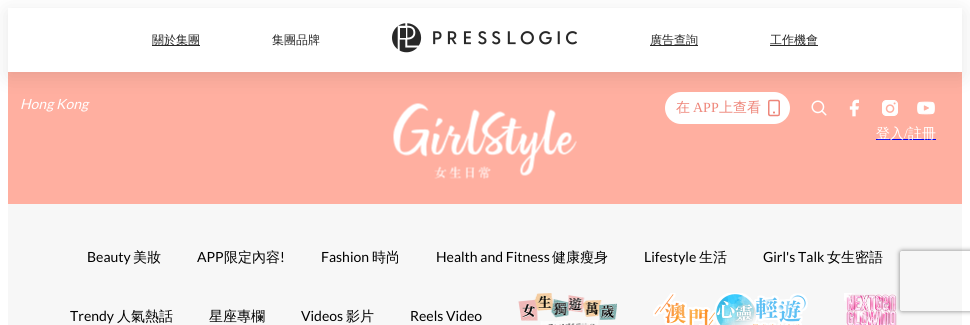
import math
import cairo



def rounded_rect(context, x, y, w, h, r):
    context.new_sub_path()
    for i, (u, v) in enumerate([(x + w - r, y + h - r), (x + r, y + h - r), (x + r, y + r), (x + w - r, y + r)]):
        context.arc(u, v, r, i * math.pi / 2, (i + 1) * math.pi / 2)
    context.close_path()


def draw_shadow(context, x, y, w, h, r, blur, alpha):
    context.push_group_with_content(cairo.Content.ALPHA)
    context.set_operator(cairo.Operator.SOURCE)
    for i in range(15, -16, -2):
        e = blur * i / 6
        if min(w, h) + 2 * e > 0:
            context.set_source_rgba(0, 0, 0, alpha * math.erfc((i - 1) / 8.5) / 2)
            rounded_rect(context, x - e, y - e, w + 2 * e, h + 2 * e, max(0, min(r + e + blur * .6, min(w, h) / 2 + e)))
            context.fill()
    context.mask(context.pop_group())


def draw_image(context, path, x, y, w, h):
    context.save()
    context.set_source_surface(cairo.ImageSurface.create_from_png(path), x, y)
    context.rectangle(x, y, w, h)
    context.fill()
    context.restore()


def draw(context):
    context.set_source_rgb(1, 1, 1)
    context.paint()
    context.set_source_rgb(1, 175 / 255, 160 / 255)
    context.rectangle(8, 72, 954, 132)
    context.fill()
    context.set_source_rgb(0, 0, 0)
    draw_shadow(context, 8, 12, 954, 64, 0, 10, 0.1)
    context.set_source_rgb(1, 1, 1)
    context.rectangle(8, 8, 954, 64)
    context.fill()
    context.set_source_rgb(40 / 255, 40 / 255, 40 / 255)
    context.rectangle(152, 45, 48, 1)
    context.fill()
    draw_image(context, "images/1.png", 392, 23, 185, 30)
    context.rectangle(650, 45, 48, 1)
    context.fill()
    context.rectangle(770, 45, 48, 1)
    context.fill()
    context.set_source_rgb(1, 1, 1)
    rounded_rect(context, 665, 92, 125, 32, 16)
    context.fill()
    draw_image(context, "images/2.png", 768, 99, 12, 18)
    draw_image(context, "images/3.png", 811, 100, 16, 16)
    draw_image(context, "images/4.png", 849, 99, 10, 18)
    draw_image(context, "images/5.png", 882, 100, 16, 16)
    draw_image(context, "images/6.png", 917, 101, 18, 14)
    context.set_source_rgb(0, 0, 238 / 255)
    context.rectangle(876, 139, 60, 1)
    context.fill()
    draw_image(context, "images/7.png", 393, 103, 184, 76)
    context.set_source_rgb(247 / 255, 247 / 255, 247 / 255)
    context.rectangle(8, 204, 954, 121)
    context.fill()
    draw_image(context, "images/8.png", 518, 293, 99, 32)
    draw_image(context, "images/9.png", 653, 293, 155, 32)
    draw_image(context, "images/10.png", 844, 293, 53, 32)
    context.save()
    context.set_fill_rule(cairo.FillRule.EVEN_ODD)
    context.new_path()
    context.move_to(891, 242)
    context.line_to(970, 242)
    context.line_to(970, 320)
    context.line_to(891, 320)
    context.close_path()
    context.move_to(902, 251)
    context.line_to(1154, 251)
    context.curve_to(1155, 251, 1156, 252, 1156, 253)
    context.line_to(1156, 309)
    context.curve_to(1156, 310, 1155, 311, 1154, 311)
    context.line_to(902, 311)
    context.curve_to(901, 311, 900, 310, 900, 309)
    context.line_to(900, 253)
    context.curve_to(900, 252, 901, 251, 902, 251)
    context.close_path()
    context.clip()
    context.set_source_rgb(128 / 255, 128 / 255, 128 / 255)
    draw_shadow(context, 900, 251, 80, 60, 2, 2.5, 1)
    context.restore()
    context.select_font_face("WenQuanYi Zen Hei Medium")
    context.set_font_size(12)
    context.set_source_rgb(40 / 255, 40 / 255, 40 / 255)
    context.move_to(152, 44)
    context.show_text("關於集團")
    context.move_to(272, 44)
    context.show_text("集團品牌")
    context.move_to(650, 44)
    context.show_text("廣告查詢")
    context.move_to(770, 44)
    context.show_text("工作機會")
    context.select_font_face("Lato", cairo.FontSlant.ITALIC)
    context.set_font_size(14)
    context.set_source_rgb(1, 1, 1)
    context.move_to(20, 109)
    context.show_text("Hong Kong")
    context.select_font_face("WenQuanYi Zen Hei Medium")
    context.set_source_rgb(238 / 255, 134 / 255, 122 / 255)
    context.move_to(676, 112)
    context.show_text("在")
    context.select_font_face("Liberation Serif")
    context.move_to(693, 112)
    context.show_text("APP")
    context.select_font_face("WenQuanYi Zen Hei Medium")
    context.move_to(719, 112)
    context.show_text("上查看")
    context.set_source_rgb(1, 1, 1)
    context.move_to(876, 138)
    context.show_text("登入")
    context.select_font_face("Liberation Serif")
    context.move_to(904, 138)
    context.show_text("/")
    context.select_font_face("WenQuanYi Zen Hei Medium")
    context.move_to(908, 138)
    context.show_text("註冊")
    context.select_font_face("Lato")
    context.set_source_rgb(0, 0, 0)
    context.move_to(87, 262)
    context.show_text("Beauty")
    context.select_font_face("WenQuanYi Zen Hei Medium")
    context.move_to(133, 262)
    context.show_text("美妝")
    context.select_font_face("Lato")
    context.move_to(197, 262)
    context.show_text("APP")
    context.select_font_face("WenQuanYi Zen Hei Medium")
    context.move_to(224, 262)
    context.show_text("限定內容")
    context.select_font_face("Lato")
    context.move_to(280, 262)
    context.show_text("!")
    context.move_to(321, 262)
    context.show_text("Fashion")
    context.select_font_face("WenQuanYi Zen Hei Medium")
    context.move_to(372, 262)
    context.show_text("時尚")
    context.select_font_face("Lato")
    context.move_to(436, 262)
    context.show_text("Health and Fitness")
    context.select_font_face("WenQuanYi Zen Hei Medium")
    context.move_to(552, 262)
    context.show_text("健康瘦身")
    context.select_font_face("Lato")
    context.move_to(644, 262)
    context.show_text("Lifestyle")
    context.select_font_face("WenQuanYi Zen Hei Medium")
    context.move_to(699, 262)
    context.show_text("生活")
    context.select_font_face("Lato")
    context.move_to(763, 262)
    context.show_text("Girl's Talk")
    context.select_font_face("WenQuanYi Zen Hei Medium")
    context.move_to(827, 262)
    context.show_text("女生密語")
    context.select_font_face("Lato")
    context.move_to(70, 321)
    context.show_text("Trendy")
    context.select_font_face("WenQuanYi Zen Hei Medium")
    context.move_to(117, 321)
    context.show_text("人氣熱話")
    context.move_to(209, 321)
    context.show_text("星座專欄")
    context.select_font_face("Lato")
    context.move_to(301, 321)
    context.show_text("Videos")
    context.select_font_face("WenQuanYi Zen Hei Medium")
    context.move_to(346, 321)
    context.show_text("影片")
    context.select_font_face("Lato")
    context.move_to(410, 321)
    context.show_text("Reels Video")


surface = cairo.ImageSurface(cairo.Format.RGB24, 970, 325)
context = cairo.Context(surface)
options = cairo.FontOptions()
options.set_hint_metrics(cairo.HintMetrics.OFF)
options.set_hint_style(cairo.HintStyle.NONE)
context.set_font_options(options)
context.set_miter_limit(4)
draw(context)
surface.write_to_png("out.png")
